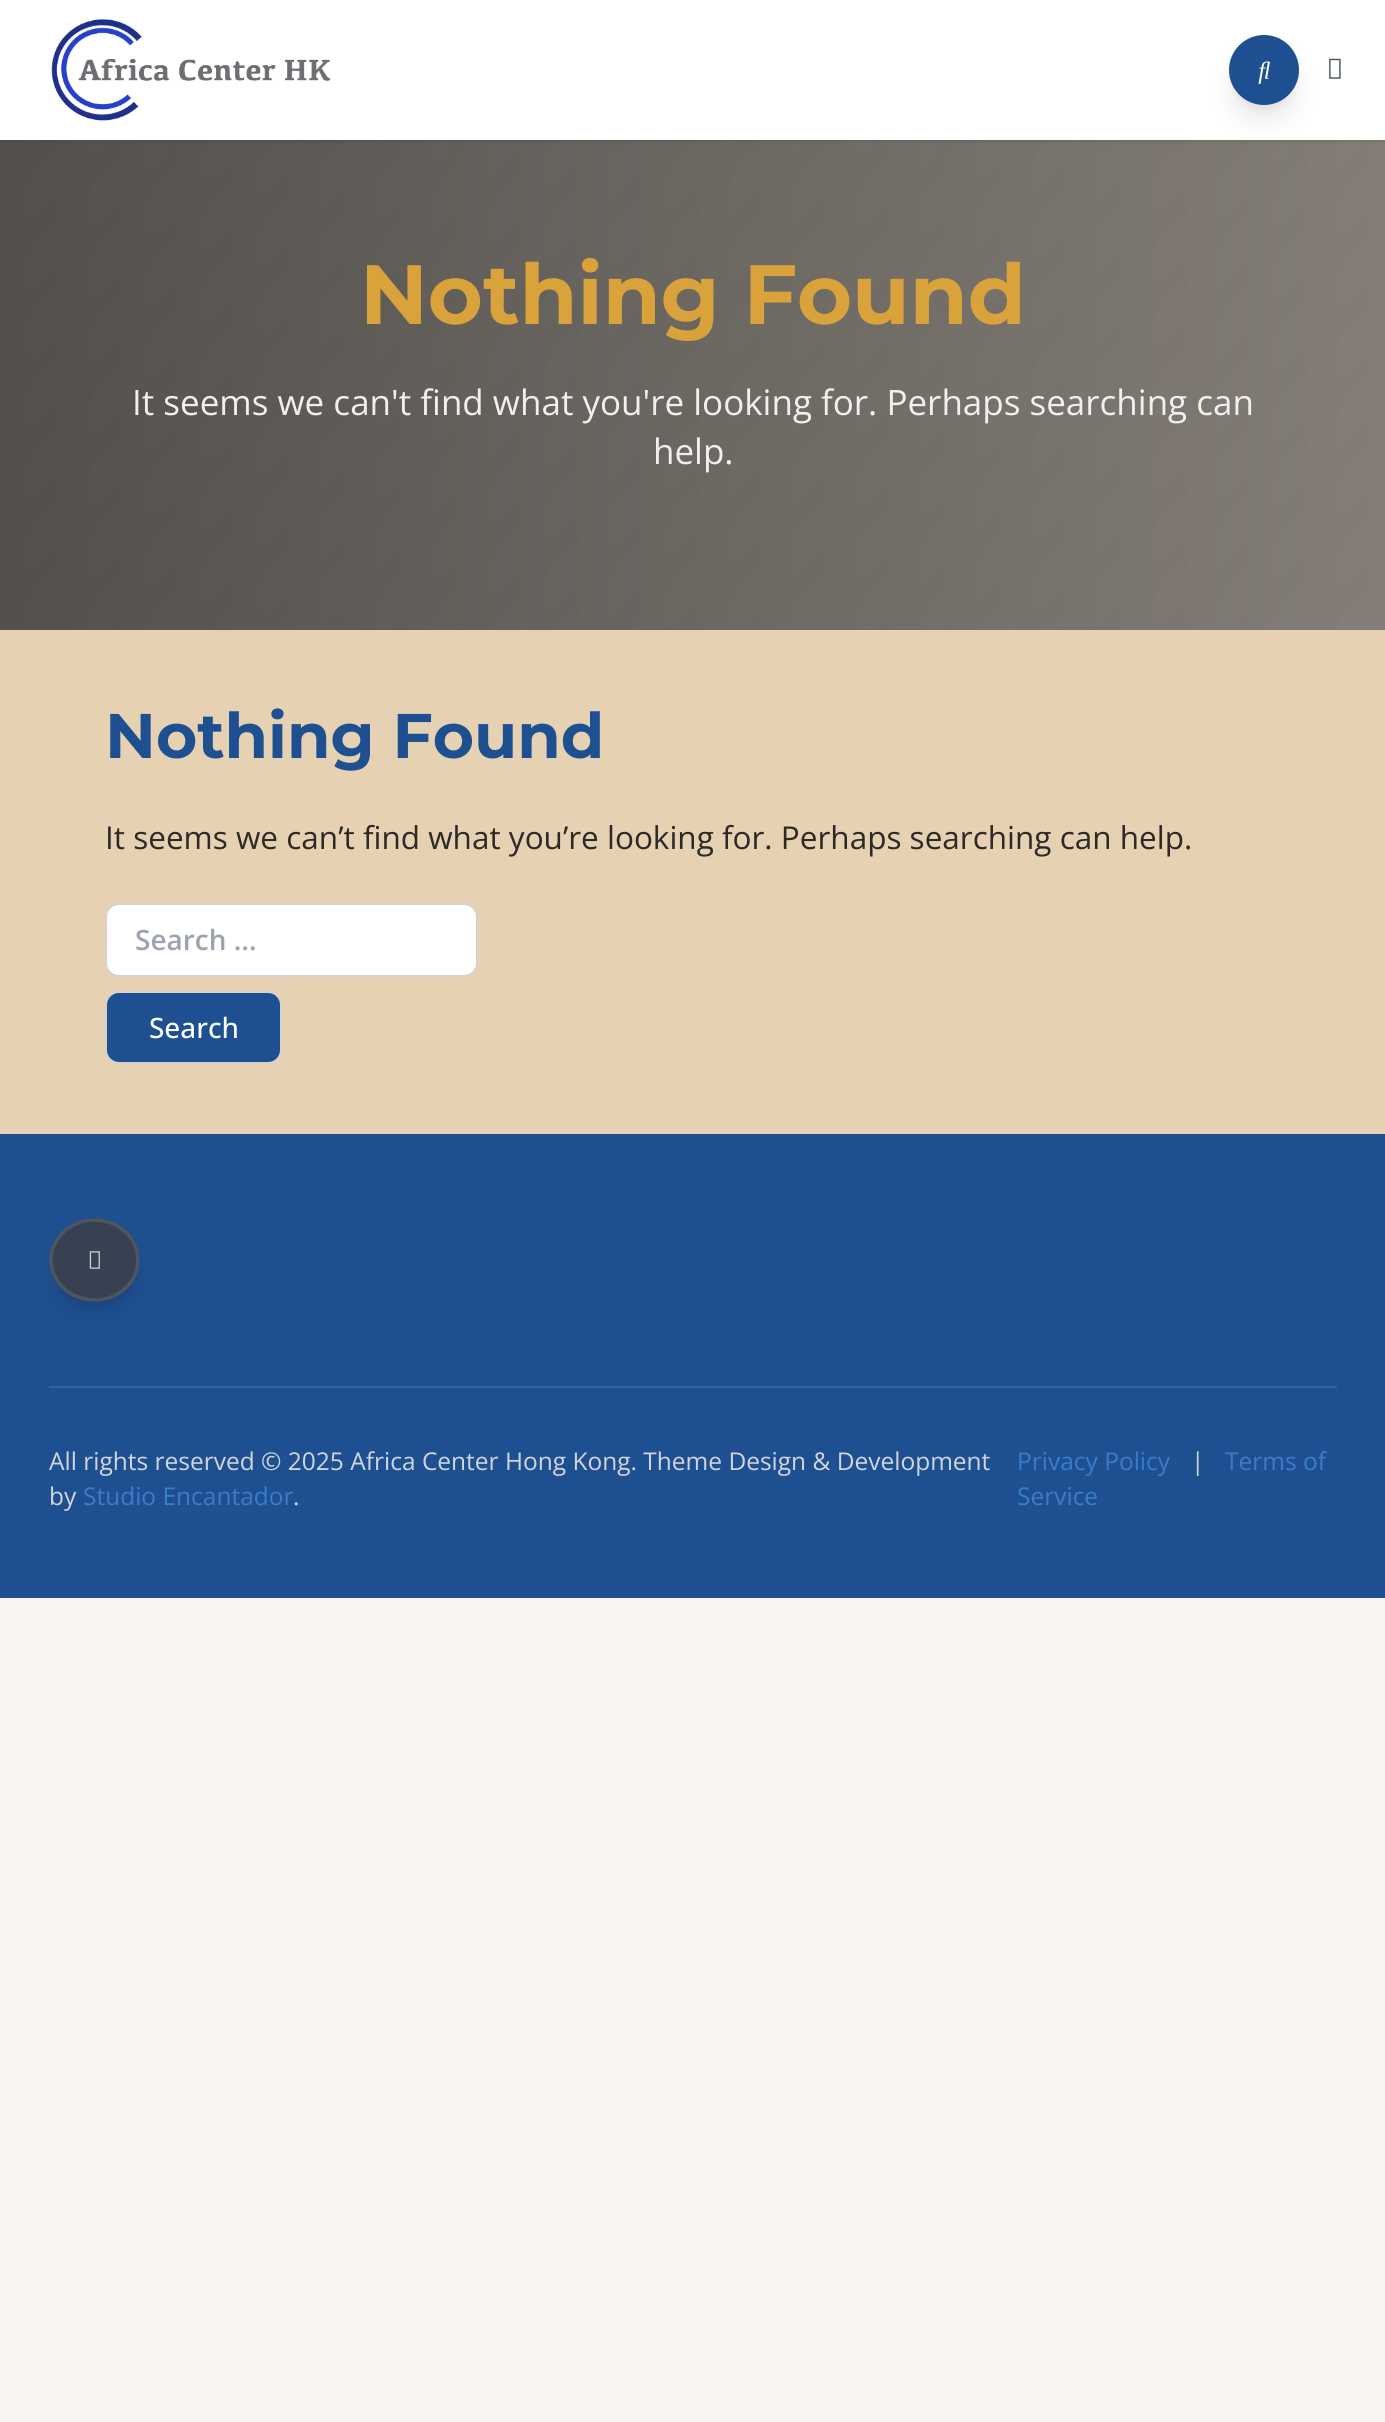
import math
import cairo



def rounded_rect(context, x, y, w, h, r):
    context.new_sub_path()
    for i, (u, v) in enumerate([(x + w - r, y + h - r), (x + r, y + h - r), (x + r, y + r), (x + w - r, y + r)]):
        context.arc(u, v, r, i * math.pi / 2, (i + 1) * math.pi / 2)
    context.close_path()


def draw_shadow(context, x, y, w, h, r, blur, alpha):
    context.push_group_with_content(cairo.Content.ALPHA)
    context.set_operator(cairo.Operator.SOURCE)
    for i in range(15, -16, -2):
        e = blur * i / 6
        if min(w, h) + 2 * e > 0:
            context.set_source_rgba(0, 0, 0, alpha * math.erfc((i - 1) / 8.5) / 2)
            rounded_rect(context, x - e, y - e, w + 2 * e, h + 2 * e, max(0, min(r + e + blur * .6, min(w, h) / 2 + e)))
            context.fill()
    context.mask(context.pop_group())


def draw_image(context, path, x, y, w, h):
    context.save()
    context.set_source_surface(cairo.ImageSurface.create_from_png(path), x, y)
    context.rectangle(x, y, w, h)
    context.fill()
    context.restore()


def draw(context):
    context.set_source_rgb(249 / 255, 246 / 255, 242 / 255)
    context.paint()
    draw_image(context, "images/4.png", 0, 140, 1385, 490)
    gradient = cairo.LinearGradient(0, 385, 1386, 385)
    gradient.add_color_stop_rgba(0, 74 / 255, 71 / 255, 68 / 255, 0.95)
    gradient.add_color_stop_rgba(1, 125 / 255, 119 / 255, 112 / 255, 0.95)
    context.set_source(gradient)
    context.rectangle(0, 140, 1385, 490)
    context.fill()
    context.set_source_rgb(0, 0, 0)
    draw_shadow(context, 0, 2, 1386, 140, 0, 2.5, 0.1)
    context.set_source_rgb(1, 1, 1)
    context.rectangle(0, 0, 1385, 140)
    context.fill()
    draw_image(context, "images/1.png", 51, 19, 280, 102)
    context.set_source_rgb(0, 0, 0)
    draw_shadow(context, 1236, 49, 56, 56, 28, 5, 0.1)
    draw_image(context, "images/3.png", 1329, 58, 12, 21)
    draw_shadow(context, 1234, 58, 59, 59, 29.5, 13, 0.1)
    context.set_source_rgb(30 / 255, 80 / 255, 145 / 255)
    context.arc(1264, 70, 35, 0, 2 * math.pi)
    context.fill()
    draw_image(context, "images/2.png", 1258, 61, 12, 23)
    context.set_source_rgb(230 / 255, 210 / 255, 178 / 255)
    context.rectangle(0, 630, 1385, 504)
    context.fill()
    context.set_source_rgb(1, 1, 1)
    rounded_rect(context, 106, 904, 371, 72, 13)
    context.fill_preserve()
    context.set_source_rgb(214 / 255, 209 / 255, 202 / 255)
    context.stroke()
    context.set_source_rgb(30 / 255, 80 / 255, 145 / 255)
    rounded_rect(context, 106, 992, 175, 71, 13)
    context.fill_preserve()
    context.set_source_rgb(214 / 255, 209 / 255, 202 / 255)
    context.stroke()
    context.set_source_rgb(30 / 255, 80 / 255, 145 / 255)
    context.rectangle(0, 1134, 1385, 464)
    context.fill()
    context.set_source_rgb(0, 0, 0)
    draw_shadow(context, 56, 1232, 77, 70, 35, 5, 0.1)
    draw_shadow(context, 54, 1241, 81, 73, 36.5, 13, 0.1)
    context.set_source_rgb(55 / 255, 65 / 255, 81 / 255)
    context.new_path()
    context.move_to(94.5, 1218)
    context.curve_to(119.5, 1218, 140, 1237, 140, 1260)
    context.curve_to(140, 1283, 119.5, 1302, 94.5, 1302)
    context.curve_to(69.5, 1302, 49, 1283, 49, 1260)
    context.curve_to(49, 1237, 69.5, 1218, 94.5, 1218)
    context.close_path()
    context.fill()
    context.new_path()
    context.move_to(94.5, 1220)
    context.curve_to(118.5, 1220, 138, 1238, 138, 1260)
    context.curve_to(138, 1282, 118.5, 1300, 94.5, 1300)
    context.curve_to(70.5, 1300, 51, 1282, 51, 1260)
    context.curve_to(51, 1238, 70.5, 1220, 94.5, 1220)
    context.close_path()
    context.set_source_rgb(75 / 255, 85 / 255, 99 / 255)
    context.set_line_width(3.5)
    context.stroke()
    draw_image(context, "images/5.png", 89, 1251, 11, 18)
    context.set_source_rgb(53 / 255, 98 / 255, 156 / 255)
    context.rectangle(49, 1386, 1288, 2)
    context.fill()
    context.select_font_face("Montserrat", cairo.FontSlant.NORMAL, cairo.FontWeight.BOLD)
    context.set_font_size(84)
    context.set_source_rgb(217 / 255, 162 / 255, 59 / 255)
    context.move_to(360, 324)
    context.show_text("Nothing Found")
    context.select_font_face("Open Sans")
    context.set_font_size(35)
    context.set_source_rgb(240 / 255, 240 / 255, 239 / 255)
    context.move_to(132, 415)
    context.show_text("It seems we can't find what you're looking for. Perhaps searching can")
    context.move_to(653, 464)
    context.show_text("help.")
    context.select_font_face("Montserrat", cairo.FontSlant.NORMAL, cairo.FontWeight.BOLD)
    context.set_font_size(63)
    context.set_source_rgb(30 / 255, 80 / 255, 145 / 255)
    context.move_to(105, 758)
    context.show_text("Nothing Found")
    context.select_font_face("Open Sans")
    context.set_font_size(31.5)
    context.set_source_rgb(44 / 255, 41 / 255, 39 / 255)
    context.move_to(105, 849)
    context.show_text("It seems we can’t find what you’re looking for. Perhaps searching can help.")
    context.select_font_face("Open Sans SemiBold")
    context.set_font_size(28)
    context.set_source_rgb(156 / 255, 163 / 255, 175 / 255)
    context.move_to(135, 950)
    context.show_text("Search …")
    context.select_font_face("Open Sans Medium")
    context.set_source_rgb(1, 1, 1)
    context.move_to(149, 1038)
    context.show_text("Search")
    context.select_font_face("Open Sans")
    context.set_font_size(24.5)
    context.set_source_rgb(209 / 255, 213 / 255, 219 / 255)
    context.move_to(49, 1470)
    context.show_text("All rights reserved © 2025 Africa Center Hong Kong. Theme Design & Development")
    context.move_to(49, 1505)
    context.show_text("by")
    context.set_source_rgb(58 / 255, 124 / 255, 201 / 255)
    context.move_to(83, 1505)
    context.show_text("Studio Encantador")
    context.set_source_rgb(209 / 255, 213 / 255, 219 / 255)
    context.move_to(293, 1505)
    context.show_text(".")
    context.set_source_rgb(58 / 255, 124 / 255, 201 / 255)
    context.move_to(1017, 1470)
    context.show_text("Privacy Policy")
    context.set_source_rgb(209 / 255, 213 / 255, 219 / 255)
    context.move_to(1191, 1470)
    context.show_text("|")
    context.set_source_rgb(58 / 255, 124 / 255, 201 / 255)
    context.move_to(1225, 1470)
    context.show_text("Terms of")
    context.move_to(1017, 1505)
    context.show_text("Service")


surface = cairo.ImageSurface(cairo.Format.RGB24, 1385, 2422)
context = cairo.Context(surface)
options = cairo.FontOptions()
options.set_hint_metrics(cairo.HintMetrics.OFF)
options.set_hint_style(cairo.HintStyle.NONE)
context.set_font_options(options)
context.set_miter_limit(4)
draw(context)
surface.write_to_png("out.png")
